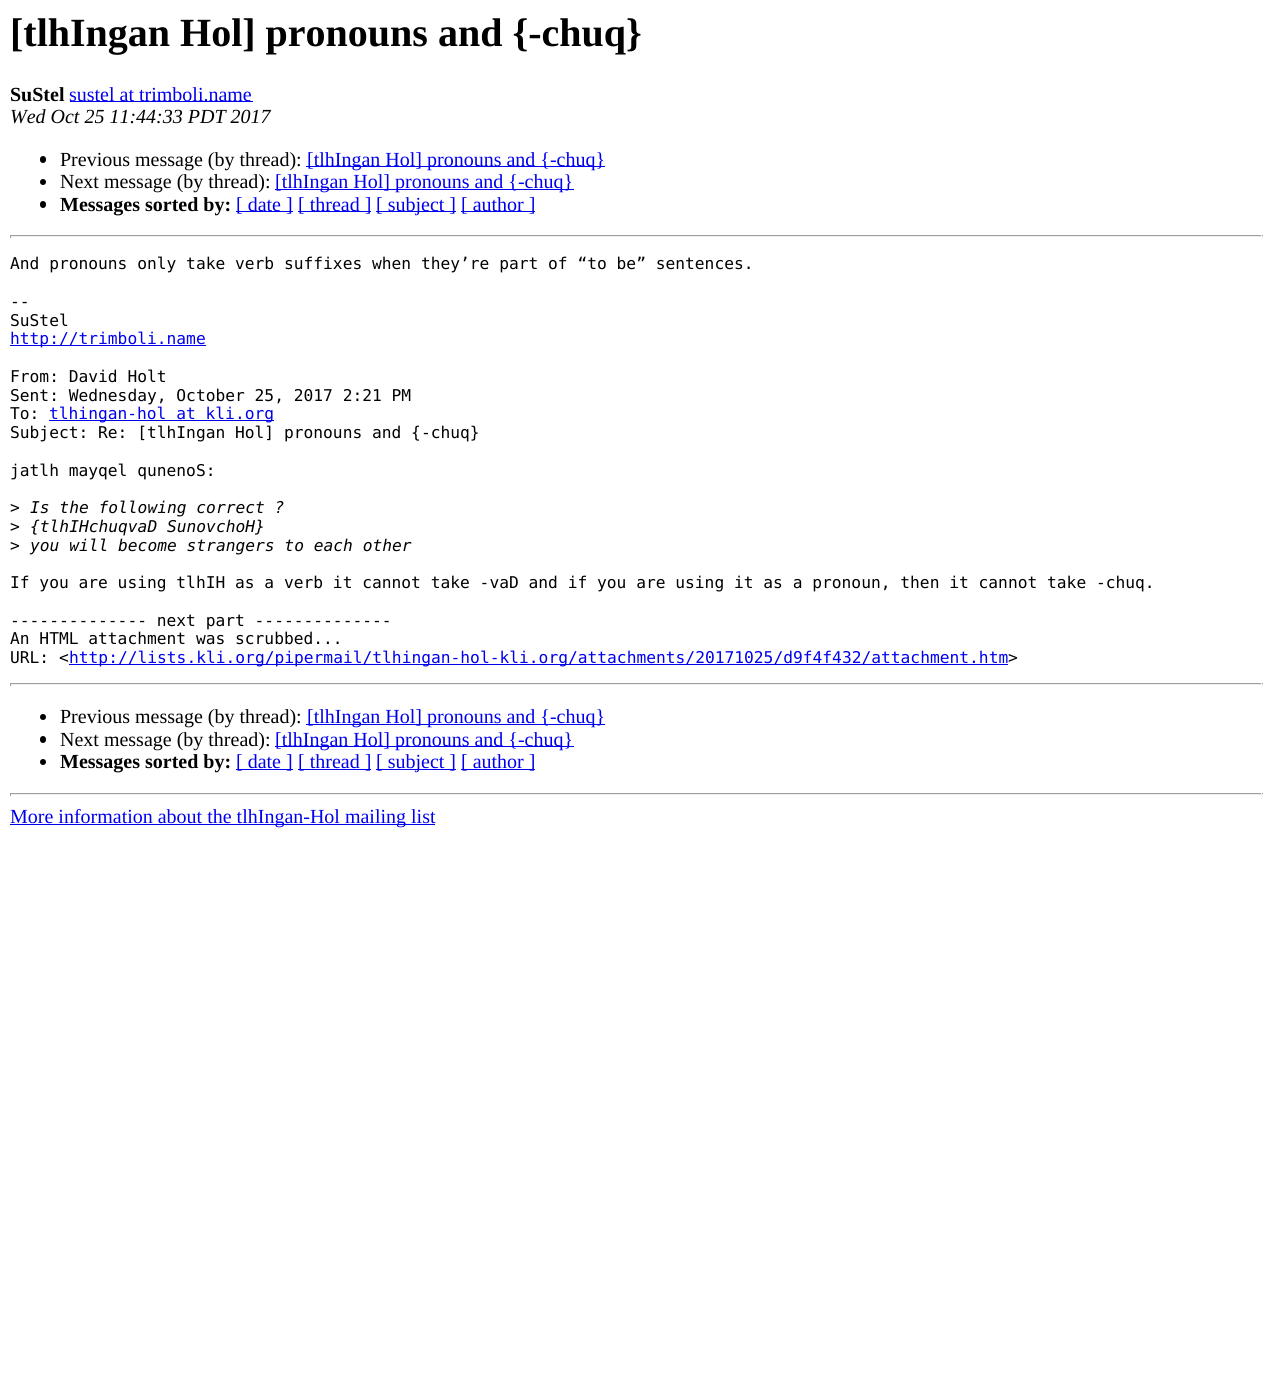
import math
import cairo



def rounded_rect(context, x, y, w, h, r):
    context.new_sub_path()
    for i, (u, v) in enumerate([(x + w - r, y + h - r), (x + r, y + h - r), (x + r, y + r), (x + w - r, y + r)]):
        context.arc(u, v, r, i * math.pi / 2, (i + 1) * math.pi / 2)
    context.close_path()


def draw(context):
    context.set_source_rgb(1, 1, 1)
    context.paint()
    context.set_source_rgb(0, 0, 238 / 255)
    context.rectangle(70, 101, 183, 1)
    context.fill()
    context.set_source_rgb(0, 0, 0)
    rounded_rect(context, 40, 156, 6, 7, 3)
    context.fill()
    context.set_source_rgb(0, 0, 238 / 255)
    context.rectangle(306, 166, 299, 1)
    context.fill()
    context.set_source_rgb(0, 0, 0)
    context.arc(43, 182, 3, 0, 2 * math.pi)
    context.fill()
    context.set_source_rgb(0, 0, 238 / 255)
    context.rectangle(275, 189, 299, 1)
    context.fill()
    context.set_source_rgb(0, 0, 0)
    rounded_rect(context, 40, 201, 6, 7, 3)
    context.fill()
    context.set_source_rgb(0, 0, 238 / 255)
    context.rectangle(236, 211, 57, 1)
    context.fill()
    context.rectangle(298, 211, 73, 1)
    context.fill()
    context.rectangle(376, 211, 80, 1)
    context.fill()
    context.rectangle(461, 211, 74, 1)
    context.fill()
    context.set_source_rgb(159 / 255, 159 / 255, 159 / 255)
    context.rectangle(10, 235, 1253, 1)
    context.fill()
    context.set_source_rgb(238 / 255, 238 / 255, 238 / 255)
    context.rectangle(1261, 235, 1, 3)
    context.fill()
    context.rectangle(10, 236, 1253, 1)
    context.fill()
    context.set_source_rgb(159 / 255, 159 / 255, 159 / 255)
    context.rectangle(10, 235, 1, 3)
    context.fill()
    context.set_source_rgb(0, 0, 238 / 255)
    context.rectangle(10, 345, 196, 1)
    context.fill()
    context.rectangle(49, 420, 225, 1)
    context.fill()
    context.rectangle(69, 664, 939, 1)
    context.fill()
    context.set_source_rgb(159 / 255, 159 / 255, 159 / 255)
    context.rectangle(10, 683, 1253, 1)
    context.fill()
    context.set_source_rgb(238 / 255, 238 / 255, 238 / 255)
    context.rectangle(1261, 683, 1, 3)
    context.fill()
    context.rectangle(10, 684, 1253, 1)
    context.fill()
    context.set_source_rgb(159 / 255, 159 / 255, 159 / 255)
    context.rectangle(10, 683, 1, 3)
    context.fill()
    context.set_source_rgb(0, 0, 0)
    context.arc(43, 717, 3, 0, 2 * math.pi)
    context.fill()
    context.set_source_rgb(0, 0, 238 / 255)
    context.rectangle(306, 724, 299, 1)
    context.fill()
    context.set_source_rgb(0, 0, 0)
    rounded_rect(context, 40, 736, 6, 7, 3)
    context.fill()
    context.set_source_rgb(0, 0, 238 / 255)
    context.rectangle(275, 746, 299, 1)
    context.fill()
    context.set_source_rgb(0, 0, 0)
    context.arc(43, 762, 3, 0, 2 * math.pi)
    context.fill()
    context.set_source_rgb(0, 0, 238 / 255)
    context.rectangle(236, 769, 57, 1)
    context.fill()
    context.rectangle(298, 769, 73, 1)
    context.fill()
    context.rectangle(376, 769, 80, 1)
    context.fill()
    context.rectangle(461, 769, 74, 1)
    context.fill()
    context.set_source_rgb(159 / 255, 159 / 255, 159 / 255)
    context.rectangle(10, 793, 1253, 1)
    context.fill()
    context.set_source_rgb(238 / 255, 238 / 255, 238 / 255)
    context.rectangle(1261, 793, 1, 3)
    context.fill()
    context.rectangle(10, 794, 1253, 1)
    context.fill()
    context.set_source_rgb(159 / 255, 159 / 255, 159 / 255)
    context.rectangle(10, 793, 1, 3)
    context.fill()
    context.set_source_rgb(0, 0, 238 / 255)
    context.rectangle(10, 824, 425, 1)
    context.fill()
    context.select_font_face("Liberation Serif", cairo.FontSlant.NORMAL, cairo.FontWeight.BOLD)
    context.set_font_size(40)
    context.set_source_rgb(0, 0, 0)
    context.move_to(10, 46)
    context.show_text("[tlhIngan Hol] pronouns and {-chuq}")
    context.set_font_size(20)
    context.move_to(10, 101)
    context.show_text("SuStel")
    context.select_font_face("Liberation Serif")
    context.set_source_rgb(0, 0, 238 / 255)
    context.move_to(69, 101)
    context.show_text("sustel at trimboli.name")
    context.select_font_face("Liberation Serif", cairo.FontSlant.ITALIC)
    context.set_source_rgb(0, 0, 0)
    context.move_to(10, 123)
    context.show_text("Wed Oct 25 11:44:33 PDT 2017")
    context.select_font_face("Liberation Serif")
    context.move_to(60, 166)
    context.show_text("Previous message (by thread):")
    context.set_source_rgb(0, 0, 238 / 255)
    context.move_to(307, 166)
    context.show_text("[tlhIngan Hol] pronouns and {-chuq}")
    context.set_source_rgb(0, 0, 0)
    context.move_to(60, 188)
    context.show_text("Next message (by thread):")
    context.set_source_rgb(0, 0, 238 / 255)
    context.move_to(275, 188)
    context.show_text("[tlhIngan Hol] pronouns and {-chuq}")
    context.select_font_face("Liberation Serif", cairo.FontSlant.NORMAL, cairo.FontWeight.BOLD)
    context.set_source_rgb(0, 0, 0)
    context.move_to(60, 211)
    context.show_text("Messages sorted by:")
    context.select_font_face("Liberation Serif")
    context.set_source_rgb(0, 0, 238 / 255)
    context.move_to(236, 211)
    context.show_text("[ date ]")
    context.move_to(298, 211)
    context.show_text("[ thread ]")
    context.move_to(376, 211)
    context.show_text("[ subject ]")
    context.move_to(461, 211)
    context.show_text("[ author ]")
    context.select_font_face("DejaVu Sans Mono")
    context.set_font_size(16.25)
    context.set_source_rgb(0, 0, 0)
    context.move_to(10, 269)
    context.show_text("And pronouns only take verb suffixes when they’re part of “to be” sentences.")
    context.move_to(10, 307)
    context.show_text("--")
    context.move_to(10, 326)
    context.show_text("SuStel")
    context.set_source_rgb(0, 0, 238 / 255)
    context.move_to(10, 344)
    context.show_text("http://trimboli.name")
    context.set_source_rgb(0, 0, 0)
    context.move_to(10, 382)
    context.show_text("From: David Holt")
    context.move_to(10, 401)
    context.show_text("Sent: Wednesday, October 25, 2017 2:21 PM")
    context.move_to(10, 419)
    context.show_text("To:")
    context.set_source_rgb(0, 0, 238 / 255)
    context.move_to(49, 419)
    context.show_text("tlhingan-hol at kli.org")
    context.set_source_rgb(0, 0, 0)
    context.move_to(10, 438)
    context.show_text("Subject: Re: [tlhIngan Hol] pronouns and {-chuq}")
    context.move_to(10, 476)
    context.show_text("jatlh mayqel qunenoS:")
    context.move_to(10, 513)
    context.show_text(">")
    context.select_font_face("DejaVu Sans Mono", cairo.FontSlant.ITALIC)
    context.move_to(30, 513)
    context.show_text("Is the following correct ?")
    context.select_font_face("DejaVu Sans Mono")
    context.move_to(10, 532)
    context.show_text(">")
    context.select_font_face("DejaVu Sans Mono", cairo.FontSlant.ITALIC)
    context.move_to(30, 532)
    context.show_text("{tlhIHchuqvaD SunovchoH}")
    context.select_font_face("DejaVu Sans Mono")
    context.move_to(10, 551)
    context.show_text(">")
    context.select_font_face("DejaVu Sans Mono", cairo.FontSlant.ITALIC)
    context.move_to(30, 551)
    context.show_text("you will become strangers to each other")
    context.select_font_face("DejaVu Sans Mono")
    context.move_to(10, 588)
    context.show_text("If you are using tlhIH as a verb it cannot take -vaD and if you are using it as a pronoun, then it cannot take -chuq.")
    context.move_to(10, 626)
    context.show_text("-------------- next part --------------")
    context.move_to(10, 644)
    context.show_text("An HTML attachment was scrubbed...")
    context.move_to(10, 663)
    context.show_text("URL: <")
    context.set_source_rgb(0, 0, 238 / 255)
    context.move_to(69, 663)
    context.show_text("http://lists.kli.org/pipermail/tlhingan-hol-kli.org/attachments/20171025/d9f4f432/attachment.htm")
    context.set_source_rgb(0, 0, 0)
    context.move_to(1008, 663)
    context.show_text(">")
    context.select_font_face("Liberation Serif")
    context.set_font_size(20)
    context.move_to(60, 723)
    context.show_text("Previous message (by thread):")
    context.set_source_rgb(0, 0, 238 / 255)
    context.move_to(307, 723)
    context.show_text("[tlhIngan Hol] pronouns and {-chuq}")
    context.set_source_rgb(0, 0, 0)
    context.move_to(60, 746)
    context.show_text("Next message (by thread):")
    context.set_source_rgb(0, 0, 238 / 255)
    context.move_to(275, 746)
    context.show_text("[tlhIngan Hol] pronouns and {-chuq}")
    context.select_font_face("Liberation Serif", cairo.FontSlant.NORMAL, cairo.FontWeight.BOLD)
    context.set_source_rgb(0, 0, 0)
    context.move_to(60, 768)
    context.show_text("Messages sorted by:")
    context.select_font_face("Liberation Serif")
    context.set_source_rgb(0, 0, 238 / 255)
    context.move_to(236, 768)
    context.show_text("[ date ]")
    context.move_to(298, 768)
    context.show_text("[ thread ]")
    context.move_to(376, 768)
    context.show_text("[ subject ]")
    context.move_to(461, 768)
    context.show_text("[ author ]")
    context.move_to(10, 823)
    context.show_text("More information about the tlhIngan-Hol mailing list")


surface = cairo.ImageSurface(cairo.Format.RGB24, 1272, 1389)
context = cairo.Context(surface)
options = cairo.FontOptions()
options.set_hint_metrics(cairo.HintMetrics.OFF)
options.set_hint_style(cairo.HintStyle.NONE)
context.set_font_options(options)
context.set_miter_limit(4)
draw(context)
surface.write_to_png("out.png")
